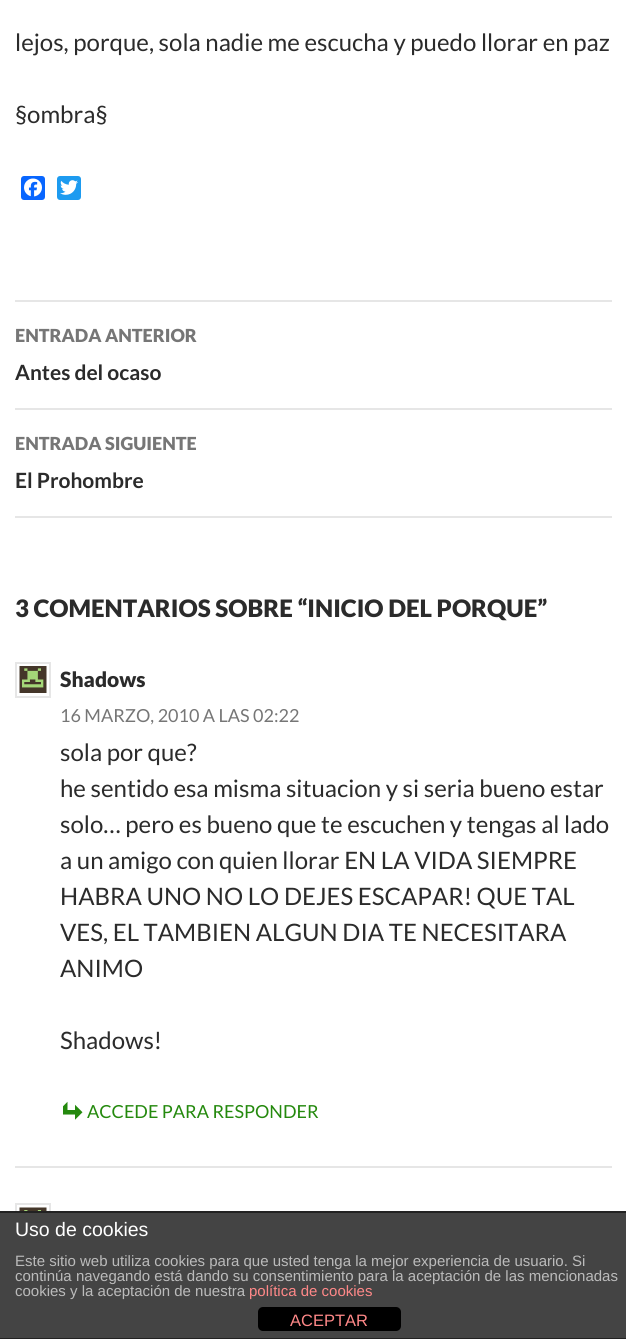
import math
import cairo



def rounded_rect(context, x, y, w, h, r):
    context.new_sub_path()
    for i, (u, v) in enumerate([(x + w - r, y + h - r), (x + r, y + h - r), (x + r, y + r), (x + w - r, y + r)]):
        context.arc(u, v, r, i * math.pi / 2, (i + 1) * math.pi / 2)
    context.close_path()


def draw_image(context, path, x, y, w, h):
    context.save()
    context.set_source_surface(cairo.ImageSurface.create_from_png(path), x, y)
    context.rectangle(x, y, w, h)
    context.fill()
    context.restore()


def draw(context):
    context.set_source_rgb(1, 1, 1)
    context.paint()
    context.set_source_rgb(8 / 255, 102 / 255, 1)
    rounded_rect(context, 21, 176, 24, 24, 3)
    context.fill()
    draw_image(context, "images/1.png", 24, 178, 18, 19)
    context.set_source_rgb(29 / 255, 155 / 255, 240 / 255)
    rounded_rect(context, 57, 176, 24, 24, 3)
    context.fill()
    draw_image(context, "images/2.png", 60, 180, 18, 15)
    context.set_source_rgb(230 / 255, 230 / 255, 230 / 255)
    context.rectangle(15, 300, 597, 2)
    context.fill()
    context.rectangle(15, 408, 597, 2)
    context.fill()
    context.rectangle(15, 516, 597, 2)
    context.fill()
    context.rectangle(16, 663, 34, 34)
    context.stroke()
    draw_image(context, "images/3.png", 19, 666, 28, 27)
    draw_image(context, "images/4.png", 63, 1101, 20, 19)
    context.rectangle(15, 1166, 597, 2)
    context.fill()
    context.rectangle(16, 1204, 34, 34)
    context.stroke()
    draw_image(context, "images/5.png", 19, 1207, 28, 4)
    context.set_source_rgb(68 / 255, 68 / 255, 68 / 255)
    context.rectangle(0, 1213, 626, 125)
    context.fill()
    context.set_source_rgb(34 / 255, 34 / 255, 34 / 255)
    context.rectangle(0, 1211, 626, 2)
    context.fill()
    context.rectangle(0, 1338, 626, 1)
    context.fill()
    context.set_source_rgb(0, 0, 0)
    rounded_rect(context, 258, 1307, 143, 24, 5)
    context.fill()
    context.select_font_face("Lato")
    context.set_font_size(24)
    context.set_source_rgb(43 / 255, 43 / 255, 43 / 255)
    context.move_to(15, 51)
    context.show_text("lejos, porque, sola nadie me escucha y puedo llorar en paz")
    context.move_to(15, 123)
    context.show_text("§ombra§")
    context.select_font_face("Lato Black")
    context.set_font_size(18)
    context.set_source_rgb(118 / 255, 118 / 255, 118 / 255)
    context.move_to(15, 342)
    context.show_text("ENTRADA ANTERIOR")
    context.select_font_face("Lato", cairo.FontSlant.NORMAL, cairo.FontWeight.BOLD)
    context.set_font_size(21)
    context.set_source_rgb(43 / 255, 43 / 255, 43 / 255)
    context.move_to(15, 380)
    context.show_text("Antes del ocaso")
    context.select_font_face("Lato Black")
    context.set_font_size(18)
    context.set_source_rgb(118 / 255, 118 / 255, 118 / 255)
    context.move_to(15, 450)
    context.show_text("ENTRADA SIGUIENTE")
    context.select_font_face("Lato", cairo.FontSlant.NORMAL, cairo.FontWeight.BOLD)
    context.set_font_size(21)
    context.set_source_rgb(43 / 255, 43 / 255, 43 / 255)
    context.move_to(15, 488)
    context.show_text("El Prohombre")
    context.select_font_face("Lato Black")
    context.set_font_size(24)
    context.move_to(15, 617)
    context.show_text("3 COMENTARIOS SOBRE “INICIO DEL PORQUE”")
    context.set_font_size(21)
    context.move_to(60, 687)
    context.show_text("Shadows")
    context.select_font_face("Lato")
    context.set_font_size(18)
    context.set_source_rgb(118 / 255, 118 / 255, 118 / 255)
    context.move_to(60, 722)
    context.show_text("16 MARZO, 2010 A LAS 02:22")
    context.set_font_size(24)
    context.set_source_rgb(43 / 255, 43 / 255, 43 / 255)
    context.move_to(60, 761)
    context.show_text("sola por que?")
    context.move_to(60, 797)
    context.show_text("he sentido esa misma situacion y si seria bueno estar")
    context.move_to(60, 833)
    context.show_text("solo… pero es bueno que te escuchen y tengas al lado")
    context.move_to(60, 869)
    context.show_text("a un amigo con quien llorar EN LA VIDA SIEMPRE")
    context.move_to(60, 905)
    context.show_text("HABRA UNO NO LO DEJES ESCAPAR! QUE TAL")
    context.move_to(60, 941)
    context.show_text("VES, EL TAMBIEN ALGUN DIA TE NECESITARA")
    context.move_to(60, 977)
    context.show_text("ANIMO")
    context.move_to(60, 1049)
    context.show_text("Shadows!")
    context.set_font_size(18)
    context.set_source_rgb(36 / 255, 137 / 255, 13 / 255)
    context.move_to(87, 1118)
    context.show_text("ACCEDE PARA RESPONDER")
    context.select_font_face("Liberation Sans")
    context.set_font_size(19.5)
    context.set_source_rgb(1, 1, 1)
    context.move_to(15, 1236)
    context.show_text("Uso de cookies")
    context.set_font_size(15)
    context.set_source_rgb(187 / 255, 187 / 255, 187 / 255)
    context.move_to(15, 1266)
    context.show_text("Este sitio web utiliza cookies para que usted tenga la mejor experiencia de usuario. Si")
    context.move_to(15, 1281)
    context.show_text("continúa navegando está dando su consentimiento para la aceptación de las mencionadas")
    context.move_to(15, 1296)
    context.show_text("cookies y la aceptación de nuestra")
    context.set_source_rgb(1, 136 / 255, 136 / 255)
    context.move_to(249, 1296)
    context.show_text("política de cookies")
    context.set_font_size(16.5)
    context.move_to(290, 1326)
    context.show_text("ACEPTAR")


surface = cairo.ImageSurface(cairo.Format.RGB24, 626, 1339)
context = cairo.Context(surface)
options = cairo.FontOptions()
options.set_hint_metrics(cairo.HintMetrics.OFF)
options.set_hint_style(cairo.HintStyle.NONE)
context.set_font_options(options)
context.set_miter_limit(4)
draw(context)
surface.write_to_png("out.png")
